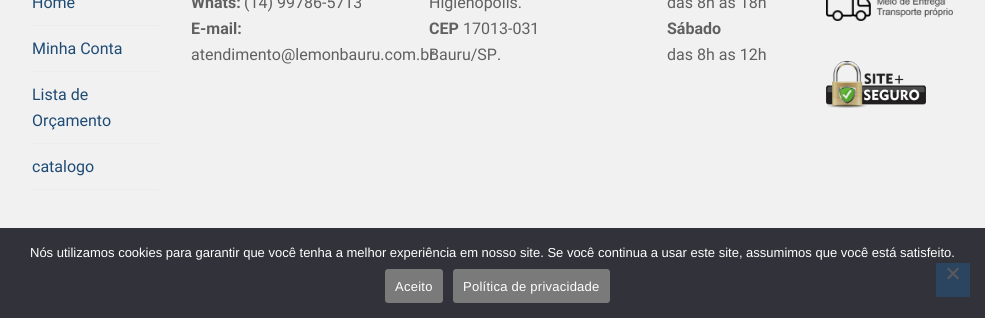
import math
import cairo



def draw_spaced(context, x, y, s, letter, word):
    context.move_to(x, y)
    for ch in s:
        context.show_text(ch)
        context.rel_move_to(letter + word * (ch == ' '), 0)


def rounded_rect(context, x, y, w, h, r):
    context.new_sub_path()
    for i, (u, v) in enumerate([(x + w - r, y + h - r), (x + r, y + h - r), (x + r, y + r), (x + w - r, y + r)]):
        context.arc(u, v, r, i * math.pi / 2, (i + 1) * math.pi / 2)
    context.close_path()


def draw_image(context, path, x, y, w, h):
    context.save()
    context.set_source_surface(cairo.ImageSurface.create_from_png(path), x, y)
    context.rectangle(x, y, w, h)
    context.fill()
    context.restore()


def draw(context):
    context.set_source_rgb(241 / 255, 241 / 255, 241 / 255)
    context.paint()
    context.set_source_rgb(234 / 255, 236 / 255, 238 / 255)
    context.rectangle(32, 25, 127, 1)
    context.fill()
    context.rectangle(32, 71, 127, 1)
    context.fill()
    context.rectangle(32, 143, 127, 1)
    context.fill()
    context.rectangle(32, 189, 127, 1)
    context.fill()
    draw_image(context, "images/1.png", 826, 0, 127, 21)
    draw_image(context, "images/2.png", 826, 61, 100, 47)
    context.set_source_rgb(50 / 255, 50 / 255, 58 / 255)
    context.rectangle(0, 228, 985, 90)
    context.fill()
    context.set_source_rgb(122 / 255, 122 / 255, 122 / 255)
    rounded_rect(context, 385, 269, 58, 34, 3)
    context.fill()
    rounded_rect(context, 453, 269, 157, 34, 3)
    context.fill()
    context.set_source_rgb(43 / 255, 69 / 255, 97 / 255)
    rounded_rect(context, 936, 263, 34, 34, 1)
    context.fill()
    context.set_source_rgb(89 / 255, 89 / 255, 93 / 255)
    context.new_path()
    context.move_to(957.5, 267.5)
    context.line_to(959, 269)
    context.line_to(948.5, 279.5)
    context.line_to(947, 278)
    context.close_path()
    context.fill()
    context.new_path()
    context.move_to(947, 269)
    context.line_to(948.5, 267.5)
    context.line_to(959, 278)
    context.line_to(957.5, 279.5)
    context.close_path()
    context.fill()
    context.select_font_face("Roboto")
    context.set_font_size(16)
    context.set_source_rgb(30 / 255, 75 / 255, 117 / 255)
    context.move_to(32, 8)
    context.show_text("Home")
    context.move_to(32, 54)
    context.show_text("Minha Conta")
    context.move_to(32, 100)
    context.show_text("Lista de")
    context.move_to(32, 126)
    context.show_text("Orçamento")
    context.move_to(32, 172)
    context.show_text("catalogo")
    context.select_font_face("Roboto", cairo.FontSlant.NORMAL, cairo.FontWeight.BOLD)
    context.set_source_rgb(96 / 255, 96 / 255, 96 / 255)
    context.move_to(191, 8)
    context.show_text("Whats:")
    context.select_font_face("Roboto")
    context.move_to(244, 8)
    context.show_text("(14) 99786-5713")
    context.select_font_face("Roboto", cairo.FontSlant.NORMAL, cairo.FontWeight.BOLD)
    context.move_to(191, 34)
    context.show_text("E-mail:")
    context.select_font_face("Roboto")
    context.move_to(191, 60)
    context.show_text("atendimento@lemonbauru.com.br")
    context.move_to(429, 8)
    context.show_text("Higienópolis.")
    context.select_font_face("Roboto", cairo.FontSlant.NORMAL, cairo.FontWeight.BOLD)
    context.move_to(429, 34)
    context.show_text("CEP")
    context.select_font_face("Roboto")
    context.move_to(463, 34)
    context.show_text("17013-031")
    context.move_to(429, 60)
    context.show_text("Bauru/SP.")
    context.move_to(667, 8)
    context.show_text("das 8h às 18h")
    context.select_font_face("Roboto", cairo.FontSlant.NORMAL, cairo.FontWeight.BOLD)
    context.move_to(667, 34)
    context.show_text("Sábado")
    context.select_font_face("Roboto")
    context.move_to(667, 60)
    context.show_text("das 8h as 12h")
    context.select_font_face("Liberation Sans")
    context.set_font_size(13)
    context.set_source_rgb(1, 1, 1)
    context.move_to(30, 257)
    context.show_text("Nós utilizamos cookies para garantir que você tenha a melhor experiência em nosso site. Se você continua a usar este site, assumimos que você está satisfeito.")
    draw_spaced(context, 395, 291, "Aceito", 0.25, 0)
    draw_spaced(context, 463, 291, "Política de privacidade", 0.25, 0)


surface = cairo.ImageSurface(cairo.Format.RGB24, 985, 318)
context = cairo.Context(surface)
options = cairo.FontOptions()
options.set_hint_metrics(cairo.HintMetrics.OFF)
options.set_hint_style(cairo.HintStyle.NONE)
context.set_font_options(options)
context.set_miter_limit(4)
draw(context)
surface.write_to_png("out.png")
